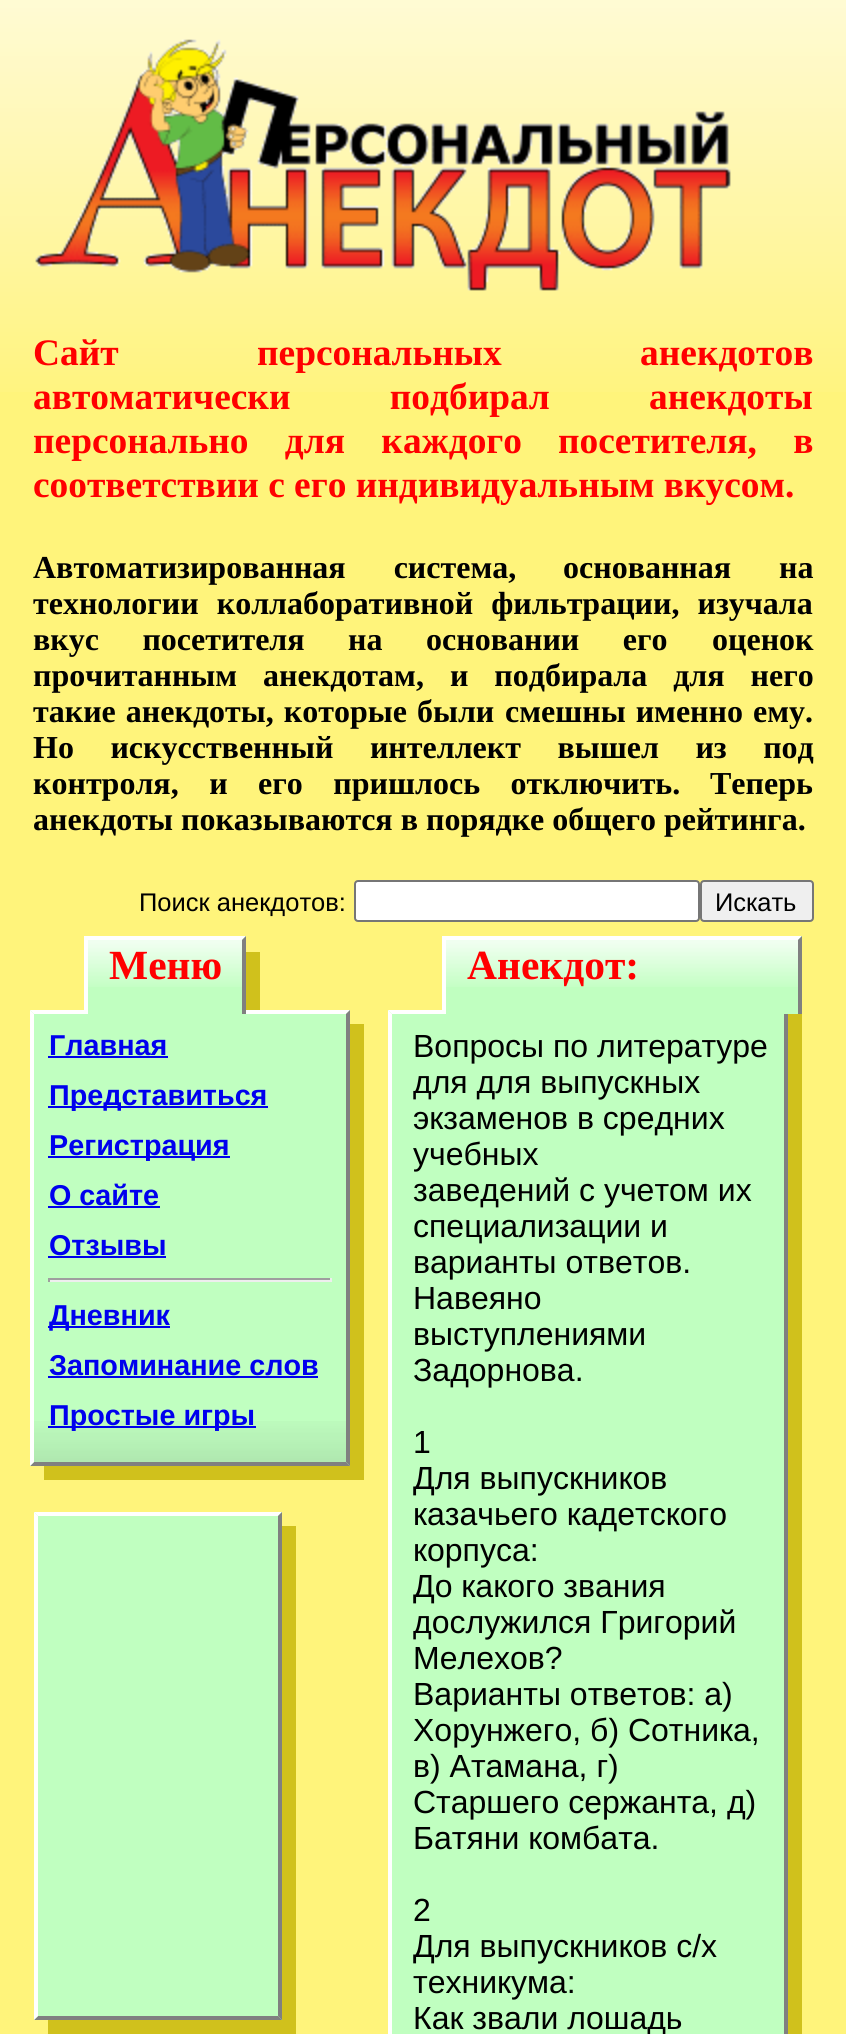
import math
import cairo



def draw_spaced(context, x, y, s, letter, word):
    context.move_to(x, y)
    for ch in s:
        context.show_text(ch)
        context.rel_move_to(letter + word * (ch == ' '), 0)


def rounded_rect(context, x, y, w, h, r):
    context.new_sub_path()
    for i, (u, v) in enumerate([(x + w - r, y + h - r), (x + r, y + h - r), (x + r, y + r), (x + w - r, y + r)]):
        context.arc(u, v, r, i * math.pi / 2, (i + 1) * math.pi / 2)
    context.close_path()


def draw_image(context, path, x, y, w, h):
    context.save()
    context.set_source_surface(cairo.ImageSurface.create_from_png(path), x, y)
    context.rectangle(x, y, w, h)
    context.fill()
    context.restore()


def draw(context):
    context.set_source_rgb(1, 244 / 255, 123 / 255)
    context.paint()
    draw_image(context, "images/1.png", 0, 0, 846, 392)
    draw_image(context, "images/2.png", 35, 39, 696, 252)
    context.set_source_rgb(1, 1, 1)
    rounded_rect(context, 355, 881, 344, 40, 3)
    context.fill_preserve()
    context.set_source_rgb(118 / 255, 118 / 255, 118 / 255)
    context.stroke()
    context.set_source_rgb(239 / 255, 239 / 255, 239 / 255)
    rounded_rect(context, 701, 881, 112, 40, 3)
    context.fill_preserve()
    context.set_source_rgb(118 / 255, 118 / 255, 118 / 255)
    context.stroke()
    context.set_source_rgb(208 / 255, 193 / 255, 28 / 255)
    context.rectangle(44, 1024, 320, 456)
    context.fill()
    context.set_source_rgb(192 / 255, 1, 192 / 255)
    context.rectangle(30, 1010, 320, 456)
    context.fill()
    context.set_source_rgb(1, 1, 1)
    context.new_path()
    context.move_to(30, 1010)
    context.line_to(350, 1010)
    context.line_to(346, 1014)
    context.line_to(34, 1014)
    context.close_path()
    context.fill()
    context.set_source_rgb(192 / 255, 1, 192 / 255)
    context.rectangle(88, 936, 158, 78)
    context.fill()
    draw_image(context, "images/3.png", 88, 940, 154, 47)
    context.set_source_rgb(1, 1, 1)
    context.new_path()
    context.move_to(84, 936)
    context.line_to(246, 936)
    context.line_to(242, 940)
    context.line_to(88, 940)
    context.close_path()
    context.fill()
    context.set_source_rgb(128 / 255, 128 / 255, 128 / 255)
    context.new_path()
    context.move_to(246, 936)
    context.line_to(246, 1014)
    context.line_to(242, 1014)
    context.line_to(242, 940)
    context.close_path()
    context.fill()
    context.set_source_rgb(1, 1, 1)
    context.rectangle(84, 936, 4, 78)
    context.fill()
    context.set_source_rgb(208 / 255, 193 / 255, 28 / 255)
    context.rectangle(246, 952, 14, 58)
    context.fill()
    draw_image(context, "images/4.png", 34, 1421, 312, 41)
    context.set_source_rgb(128 / 255, 128 / 255, 128 / 255)
    context.new_path()
    context.move_to(350, 1010)
    context.line_to(350, 1466)
    context.line_to(346, 1462)
    context.line_to(346, 1014)
    context.close_path()
    context.fill()
    context.new_path()
    context.move_to(350, 1466)
    context.line_to(30, 1466)
    context.line_to(34, 1462)
    context.line_to(346, 1462)
    context.close_path()
    context.fill()
    context.set_source_rgb(1, 1, 1)
    context.new_path()
    context.move_to(30, 1466)
    context.line_to(30, 1010)
    context.line_to(34, 1014)
    context.line_to(34, 1462)
    context.close_path()
    context.fill()
    context.set_source_rgb(0, 0, 238 / 255)
    context.rectangle(48, 1056, 120, 2)
    context.fill()
    context.rectangle(48, 1106, 220, 2)
    context.fill()
    context.rectangle(48, 1156, 182, 2)
    context.fill()
    context.rectangle(48, 1206, 112, 2)
    context.fill()
    context.rectangle(48, 1256, 118, 2)
    context.fill()
    context.set_source_rgb(159 / 255, 159 / 255, 159 / 255)
    context.rectangle(48, 1278, 284, 2)
    context.fill()
    context.set_source_rgb(238 / 255, 238 / 255, 238 / 255)
    context.rectangle(330, 1278, 2, 4)
    context.fill()
    context.rectangle(48, 1280, 284, 2)
    context.fill()
    context.set_source_rgb(159 / 255, 159 / 255, 159 / 255)
    context.rectangle(48, 1278, 2, 4)
    context.fill()
    context.set_source_rgb(0, 0, 238 / 255)
    context.rectangle(48, 1326, 122, 2)
    context.fill()
    context.rectangle(48, 1376, 270, 2)
    context.fill()
    context.rectangle(48, 1426, 208, 2)
    context.fill()
    context.set_source_rgb(208 / 255, 193 / 255, 28 / 255)
    context.rectangle(788, 1014, 14, 1020)
    context.fill()
    context.set_source_rgb(192 / 255, 1, 192 / 255)
    context.rectangle(388, 1010, 396, 1024)
    context.fill()
    context.set_source_rgb(1, 1, 1)
    context.new_path()
    context.move_to(388, 1010)
    context.line_to(788, 1010)
    context.line_to(784, 1014)
    context.line_to(392, 1014)
    context.close_path()
    context.fill()
    context.set_source_rgb(128 / 255, 128 / 255, 128 / 255)
    context.new_path()
    context.move_to(788, 1010)
    context.line_to(788, 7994)
    context.line_to(784, 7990)
    context.line_to(784, 1014)
    context.close_path()
    context.fill()
    context.set_source_rgb(192 / 255, 1, 192 / 255)
    context.rectangle(446, 936, 356, 78)
    context.fill()
    draw_image(context, "images/5.png", 446, 940, 352, 47)
    context.set_source_rgb(1, 1, 1)
    context.new_path()
    context.move_to(442, 936)
    context.line_to(802, 936)
    context.line_to(798, 940)
    context.line_to(446, 940)
    context.close_path()
    context.fill()
    context.set_source_rgb(128 / 255, 128 / 255, 128 / 255)
    context.new_path()
    context.move_to(802, 936)
    context.line_to(802, 1014)
    context.line_to(798, 1014)
    context.line_to(798, 940)
    context.close_path()
    context.fill()
    context.set_source_rgb(1, 1, 1)
    context.rectangle(442, 936, 4, 78)
    context.fill()
    context.new_path()
    context.move_to(388, 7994)
    context.line_to(388, 1010)
    context.line_to(392, 1014)
    context.line_to(392, 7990)
    context.close_path()
    context.fill()
    context.set_source_rgb(208 / 255, 193 / 255, 28 / 255)
    context.new_path()
    context.move_to(48, 2020)
    context.line_to(48, 2034)
    context.line_to(296, 2034)
    context.line_to(296, 1526)
    context.line_to(282, 1526)
    context.line_to(282, 2020)
    context.close_path()
    context.fill()
    context.set_source_rgb(192 / 255, 1, 192 / 255)
    context.rectangle(34, 1512, 248, 508)
    context.fill()
    context.set_source_rgb(1, 1, 1)
    context.new_path()
    context.move_to(34, 1512)
    context.line_to(282, 1512)
    context.line_to(278, 1516)
    context.line_to(38, 1516)
    context.close_path()
    context.fill()
    context.set_source_rgb(128 / 255, 128 / 255, 128 / 255)
    context.new_path()
    context.move_to(282, 1512)
    context.line_to(282, 2020)
    context.line_to(278, 2016)
    context.line_to(278, 1516)
    context.close_path()
    context.fill()
    context.new_path()
    context.move_to(282, 2020)
    context.line_to(34, 2020)
    context.line_to(38, 2016)
    context.line_to(278, 2016)
    context.close_path()
    context.fill()
    context.set_source_rgb(1, 1, 1)
    context.new_path()
    context.move_to(34, 2020)
    context.line_to(34, 1512)
    context.line_to(38, 1516)
    context.line_to(38, 2016)
    context.close_path()
    context.fill()
    context.select_font_face("Liberation Serif", cairo.FontSlant.NORMAL, cairo.FontWeight.BOLD)
    context.set_font_size(37.4)
    context.set_source_rgb(1, 0, 0)
    draw_spaced(context, 33, 365, "Сайт персональных анекдотов", 0, 129)
    draw_spaced(context, 33, 409, "автоматически подбирал анекдоты", 0, 90)
    draw_spaced(context, 33, 453, "персонально для каждого", 0, 27)
    draw_spaced(context, 558, 453, "посетителя, в", 0, 27)
    context.move_to(33, 497)
    context.show_text("соответствии с его индивидуальным вкусом.")
    context.set_font_size(32)
    context.set_source_rgb(0, 0, 0)
    draw_spaced(context, 33, 578, "Автоматизированная система,", 0, 40)
    draw_spaced(context, 563, 578, "основанная на", 0, 40)
    draw_spaced(context, 33, 614, "технологии коллаборативной фильтрации, изучала", 0, 10)
    draw_spaced(context, 33, 650, "вкус посетителя на основании его", 0, 35.5)
    context.move_to(712, 650)
    context.show_text("оценок")
    draw_spaced(context, 33, 686, "прочитанным анекдотам, и подбирала для него", 0, 18)
    draw_spaced(context, 33, 722, "такие анекдоты, которые были", 0, 2)
    draw_spaced(context, 505, 722, "смешны именно ему.", 0, 2)
    draw_spaced(context, 33, 758, "Но искусственный интеллект вышел из под", 0, 28.5)
    draw_spaced(context, 33, 794, "контроля, и его пришлось отключить.", 0, 22.5)
    context.move_to(710, 794)
    context.show_text("Теперь")
    context.move_to(33, 830)
    context.show_text("анекдоты показываются в порядке общего рейтинга.")
    context.select_font_face("Liberation Sans")
    context.set_font_size(25.5)
    context.move_to(139, 911)
    context.show_text("Поиск анекдотов:")
    context.move_to(715, 911)
    context.show_text("Искать")
    context.select_font_face("Liberation Serif", cairo.FontSlant.NORMAL, cairo.FontWeight.BOLD)
    context.set_font_size(41.5)
    context.set_source_rgb(1, 0, 0)
    context.move_to(109, 979)
    context.show_text("Меню")
    context.select_font_face("Liberation Sans", cairo.FontSlant.NORMAL, cairo.FontWeight.BOLD)
    context.set_font_size(28.75)
    context.set_source_rgb(0, 0, 238 / 255)
    context.move_to(49, 1055)
    context.show_text("Главная")
    context.move_to(49, 1105)
    context.show_text("Представиться")
    context.move_to(49, 1155)
    context.show_text("Регистрация")
    context.move_to(49, 1205)
    context.show_text("О сайте")
    context.move_to(49, 1255)
    context.show_text("Отзывы")
    context.move_to(49, 1325)
    context.show_text("Дневник")
    context.move_to(49, 1375)
    context.show_text("Запоминание слов")
    context.move_to(49, 1425)
    context.show_text("Простые игры")
    context.select_font_face("Liberation Serif", cairo.FontSlant.NORMAL, cairo.FontWeight.BOLD)
    context.set_font_size(41.5)
    context.set_source_rgb(1, 0, 0)
    context.move_to(467, 979)
    context.show_text("Анекдот:")
    context.select_font_face("Liberation Sans")
    context.set_font_size(32)
    context.set_source_rgb(0, 0, 0)
    context.move_to(413, 1057)
    context.show_text("Вопросы по литературе")
    context.move_to(413, 1093)
    context.show_text("для для выпускных")
    context.move_to(413, 1129)
    context.show_text("экзаменов в средних")
    context.move_to(413, 1165)
    context.show_text("учебных")
    context.move_to(413, 1201)
    context.show_text("заведений с учетом их")
    context.move_to(413, 1237)
    context.show_text("специализации и")
    context.move_to(413, 1273)
    context.show_text("варианты ответов.")
    context.move_to(413, 1309)
    context.show_text("Навеяно")
    context.move_to(413, 1345)
    context.show_text("выступлениями")
    context.move_to(413, 1381)
    context.show_text("Задорнова.")
    context.move_to(413, 1453)
    context.show_text("1")
    context.move_to(413, 1489)
    context.show_text("Для выпускников")
    context.move_to(413, 1525)
    context.show_text("казачьего кадетского")
    context.move_to(413, 1561)
    context.show_text("корпуса:")
    context.move_to(413, 1597)
    context.show_text("До какого звания")
    context.move_to(413, 1633)
    context.show_text("дослужился Григорий")
    context.move_to(413, 1669)
    context.show_text("Мелехов?")
    context.move_to(413, 1705)
    context.show_text("Варианты ответов: а)")
    context.move_to(413, 1741)
    context.show_text("Хорунжего, б) Сотника,")
    context.move_to(413, 1777)
    context.show_text("в) Атамана, г)")
    context.move_to(413, 1813)
    context.show_text("Старшего сержанта, д)")
    context.move_to(413, 1849)
    context.show_text("Батяни комбата.")
    context.move_to(413, 1921)
    context.show_text("2")
    context.move_to(413, 1957)
    context.show_text("Для выпускников с/х")
    context.move_to(413, 1993)
    context.show_text("техникума:")
    context.move_to(413, 2029)
    context.show_text("Как звали лошадь")


surface = cairo.ImageSurface(cairo.Format.RGB24, 846, 2034)
context = cairo.Context(surface)
options = cairo.FontOptions()
options.set_hint_metrics(cairo.HintMetrics.OFF)
options.set_hint_style(cairo.HintStyle.NONE)
context.set_font_options(options)
context.set_miter_limit(4)
draw(context)
surface.write_to_png("out.png")
